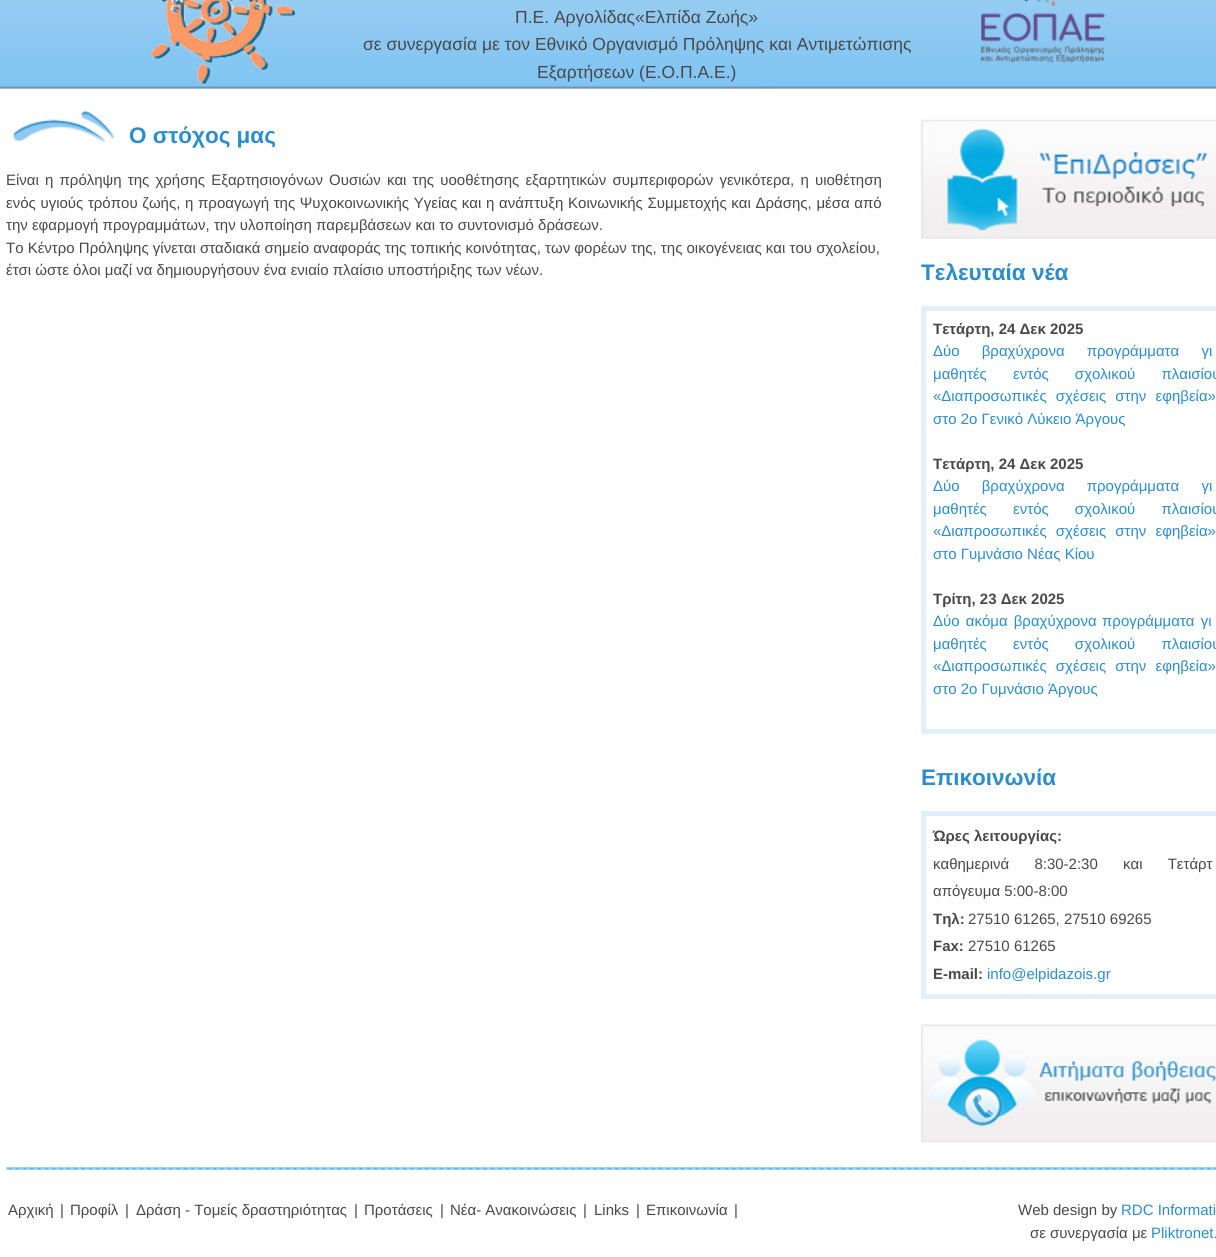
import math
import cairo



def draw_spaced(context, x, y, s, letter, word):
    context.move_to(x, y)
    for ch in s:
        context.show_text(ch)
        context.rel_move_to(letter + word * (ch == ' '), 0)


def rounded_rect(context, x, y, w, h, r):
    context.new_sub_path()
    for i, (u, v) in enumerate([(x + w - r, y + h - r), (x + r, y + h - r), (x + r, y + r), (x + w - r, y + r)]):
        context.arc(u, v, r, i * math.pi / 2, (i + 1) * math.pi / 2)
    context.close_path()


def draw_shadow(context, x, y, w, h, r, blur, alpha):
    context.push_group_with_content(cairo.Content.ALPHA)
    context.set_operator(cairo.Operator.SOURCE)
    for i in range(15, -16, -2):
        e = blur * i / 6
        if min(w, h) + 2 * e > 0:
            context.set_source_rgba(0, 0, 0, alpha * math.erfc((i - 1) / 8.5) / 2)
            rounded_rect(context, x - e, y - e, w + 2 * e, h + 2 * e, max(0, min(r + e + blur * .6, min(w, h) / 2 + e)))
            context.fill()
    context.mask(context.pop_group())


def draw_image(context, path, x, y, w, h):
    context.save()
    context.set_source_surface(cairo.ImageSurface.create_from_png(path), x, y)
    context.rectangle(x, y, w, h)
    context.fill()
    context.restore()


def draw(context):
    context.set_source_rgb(1, 1, 1)
    context.paint()
    draw_image(context, "images/1.png", 0, 0, 1216, 89)
    context.set_source_rgb(80 / 255, 80 / 255, 80 / 255)
    draw_shadow(context, -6, 89, 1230, 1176, 0, 2.5, 0.3)
    draw_image(context, "images/2.png", 150, 0, 146, 86)
    draw_image(context, "images/3.png", 980, 0, 126, 64)
    context.set_source_rgb(1, 1, 1)
    context.rectangle(0, 89, 1216, 1168)
    context.fill()
    draw_image(context, "images/4.png", 13, 110, 101, 33)
    draw_image(context, "images/5.png", 921, 119, 295, 120)
    context.rectangle(923.5, 308.5, 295, 423)
    context.set_source_rgb(223 / 255, 240 / 255, 252 / 255)
    context.set_line_width(5)
    context.stroke()
    context.rectangle(923.5, 813.5, 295, 183)
    context.stroke()
    draw_image(context, "images/6.png", 921, 1024, 295, 119)
    draw_image(context, "images/7.png", 6, 1167, 1210, 3)
    context.select_font_face("Liberation Sans")
    context.set_font_size(17.5)
    context.set_source_rgb(73 / 255, 72 / 255, 72 / 255)
    context.move_to(515, 23)
    context.show_text("Π.Ε. Αργολίδας«Ελπίδα Ζωής»")
    context.move_to(363, 50)
    context.show_text("σε συνεργασία με τον Εθνικό Οργανισμό Πρόληψης και Αντιμετώπισης")
    context.move_to(537, 78)
    context.show_text("Εξαρτήσεων (Ε.Ο.Π.Α.Ε.)")
    context.select_font_face("Liberation Sans", cairo.FontSlant.NORMAL, cairo.FontWeight.BOLD)
    context.set_font_size(22.5)
    context.set_source_rgb(43 / 255, 140 / 255, 207 / 255)
    context.move_to(129, 143)
    context.show_text("Ο στόχος μας")
    context.select_font_face("Liberation Sans")
    context.set_font_size(15)
    context.set_source_rgb(73 / 255, 72 / 255, 72 / 255)
    draw_spaced(context, 6, 185, "Eίναι η πρόληψη της χρήσης Εξαρτησιογόνων Ουσιών και της υοοθέτησης εξαρτητικών συμπεριφορών γενικότερα, η υιοθέτηση", 0, 2)
    draw_spaced(context, 6, 208, "ενός υγιούς τρόπου ζωής, η προαγωγή της Ψυχοκοινωνικής Υγείας και η ανάπτυξη Κοινωνικής Συμμετοχής και Δράσης, μέσα από", 0, 0.5)
    context.move_to(6, 230)
    context.show_text("την εφαρμογή προγραμμάτων, την υλοποίηση παρεμβάσεων και το συντονισμό δράσεων.")
    context.move_to(6, 253)
    context.show_text("Το Κέντρο Πρόληψης γίνεται σταδιακά σημείο αναφοράς της τοπικής κοινότητας, των φορέων της, της οικογένειας και του σχολείου,")
    context.move_to(6, 275)
    context.show_text("έτσι ώστε όλοι μαζί να δημιουργήσουν ένα ενιαίο πλαίσιο υποστήριξης των νέων.")
    context.select_font_face("Liberation Sans", cairo.FontSlant.NORMAL, cairo.FontWeight.BOLD)
    context.set_font_size(22.5)
    context.set_source_rgb(43 / 255, 140 / 255, 207 / 255)
    context.move_to(921, 280)
    context.show_text("Τελευταία νέα")
    context.set_font_size(15)
    context.set_source_rgb(73 / 255, 72 / 255, 72 / 255)
    context.move_to(933, 334)
    context.show_text("Τετάρτη, 24 Δεκ 2025")
    context.select_font_face("Liberation Sans")
    context.set_source_rgb(43 / 255, 140 / 255, 207 / 255)
    draw_spaced(context, 933, 356, "Δύο βραχύχρονα προγράμματα γι", 0, 18)
    draw_spaced(context, 933, 379, "μαθητές εντός σχολικού πλαισίου", 0, 22)
    draw_spaced(context, 933, 401, "«Διαπροσωπικές σχέσεις στην εφηβεία»", 0, 5)
    context.move_to(933, 424)
    context.show_text("στο 2ο Γενικό Λύκειο Άργους")
    context.select_font_face("Liberation Sans", cairo.FontSlant.NORMAL, cairo.FontWeight.BOLD)
    context.set_source_rgb(73 / 255, 72 / 255, 72 / 255)
    context.move_to(933, 469)
    context.show_text("Τετάρτη, 24 Δεκ 2025")
    context.select_font_face("Liberation Sans")
    context.set_source_rgb(43 / 255, 140 / 255, 207 / 255)
    draw_spaced(context, 933, 491, "Δύο βραχύχρονα προγράμματα γι", 0, 18)
    draw_spaced(context, 933, 514, "μαθητές εντός σχολικού πλαισίου", 0, 22)
    draw_spaced(context, 933, 536, "«Διαπροσωπικές σχέσεις στην εφηβεία»", 0, 5)
    context.move_to(933, 559)
    context.show_text("στο Γυμνάσιο Νέας Κίου")
    context.select_font_face("Liberation Sans", cairo.FontSlant.NORMAL, cairo.FontWeight.BOLD)
    context.set_source_rgb(73 / 255, 72 / 255, 72 / 255)
    context.move_to(933, 604)
    context.show_text("Τρίτη, 23 Δεκ 2025")
    context.select_font_face("Liberation Sans")
    context.set_source_rgb(43 / 255, 140 / 255, 207 / 255)
    draw_spaced(context, 933, 626, "Δύο ακόμα βραχύχρονα", 0, 2)
    draw_spaced(context, 1102, 626, "προγράμματα γι", 0, 2)
    draw_spaced(context, 933, 649, "μαθητές εντός σχολικού πλαισίου", 0, 22)
    draw_spaced(context, 933, 671, "«Διαπροσωπικές σχέσεις στην εφηβεία»", 0, 5)
    context.move_to(933, 694)
    context.show_text("στο 2ο Γυμνάσιο Άργους")
    context.select_font_face("Liberation Sans", cairo.FontSlant.NORMAL, cairo.FontWeight.BOLD)
    context.set_font_size(22.5)
    context.move_to(921, 785)
    context.show_text("Επικοινωνία")
    context.set_font_size(15)
    context.set_source_rgb(73 / 255, 72 / 255, 72 / 255)
    context.move_to(933, 841)
    context.show_text("Ώρες λειτουργίας:")
    context.select_font_face("Liberation Sans")
    draw_spaced(context, 933, 869, "καθημερινά 8:30-2:30 και Τετάρτ", 0, 21)
    context.move_to(933, 896)
    context.show_text("απόγευμα 5:00-8:00")
    context.select_font_face("Liberation Sans", cairo.FontSlant.NORMAL, cairo.FontWeight.BOLD)
    context.move_to(933, 924)
    context.show_text("Τηλ:")
    context.select_font_face("Liberation Sans")
    context.move_to(968, 924)
    context.show_text("27510 61265, 27510 69265")
    context.select_font_face("Liberation Sans", cairo.FontSlant.NORMAL, cairo.FontWeight.BOLD)
    context.move_to(933, 951)
    context.show_text("Fax:")
    context.select_font_face("Liberation Sans")
    context.move_to(968, 951)
    context.show_text("27510 61265")
    context.select_font_face("Liberation Sans", cairo.FontSlant.NORMAL, cairo.FontWeight.BOLD)
    context.move_to(933, 979)
    context.show_text("E-mail:")
    context.select_font_face("Liberation Sans")
    context.set_source_rgb(43 / 255, 140 / 255, 207 / 255)
    context.move_to(987, 979)
    context.show_text("info@elpidazois.gr")
    context.set_source_rgb(73 / 255, 72 / 255, 72 / 255)
    context.move_to(8, 1215)
    context.show_text("Αρχική")
    context.move_to(60, 1215)
    context.show_text("|")
    context.move_to(70, 1215)
    context.show_text("Προφίλ")
    context.move_to(125, 1215)
    context.show_text("|")
    context.move_to(136, 1215)
    context.show_text("Δράση - Τομείς δραστηριότητας")
    context.move_to(354, 1215)
    context.show_text("|")
    context.move_to(364, 1215)
    context.show_text("Προτάσεις")
    context.move_to(440, 1215)
    context.show_text("|")
    context.move_to(450, 1215)
    context.show_text("Νέα- Ανακοινώσεις")
    context.move_to(583, 1215)
    context.show_text("|")
    context.move_to(594, 1215)
    context.show_text("Links")
    context.move_to(636, 1215)
    context.show_text("|")
    context.move_to(646, 1215)
    context.show_text("Επικοινωνία")
    context.move_to(734, 1215)
    context.show_text("|")
    context.move_to(1018, 1215)
    context.show_text("Web design by")
    context.set_source_rgb(43 / 255, 140 / 255, 207 / 255)
    context.move_to(1121, 1215)
    context.show_text("RDC Informati")
    context.set_source_rgb(73 / 255, 72 / 255, 72 / 255)
    context.move_to(1030, 1238)
    context.show_text("σε συνεργασία με")
    context.set_source_rgb(43 / 255, 140 / 255, 207 / 255)
    context.move_to(1151, 1238)
    context.show_text("Pliktronet.")


surface = cairo.ImageSurface(cairo.Format.RGB24, 1216, 1257)
context = cairo.Context(surface)
options = cairo.FontOptions()
options.set_hint_metrics(cairo.HintMetrics.OFF)
options.set_hint_style(cairo.HintStyle.NONE)
context.set_font_options(options)
context.set_miter_limit(4)
draw(context)
surface.write_to_png("out.png")
